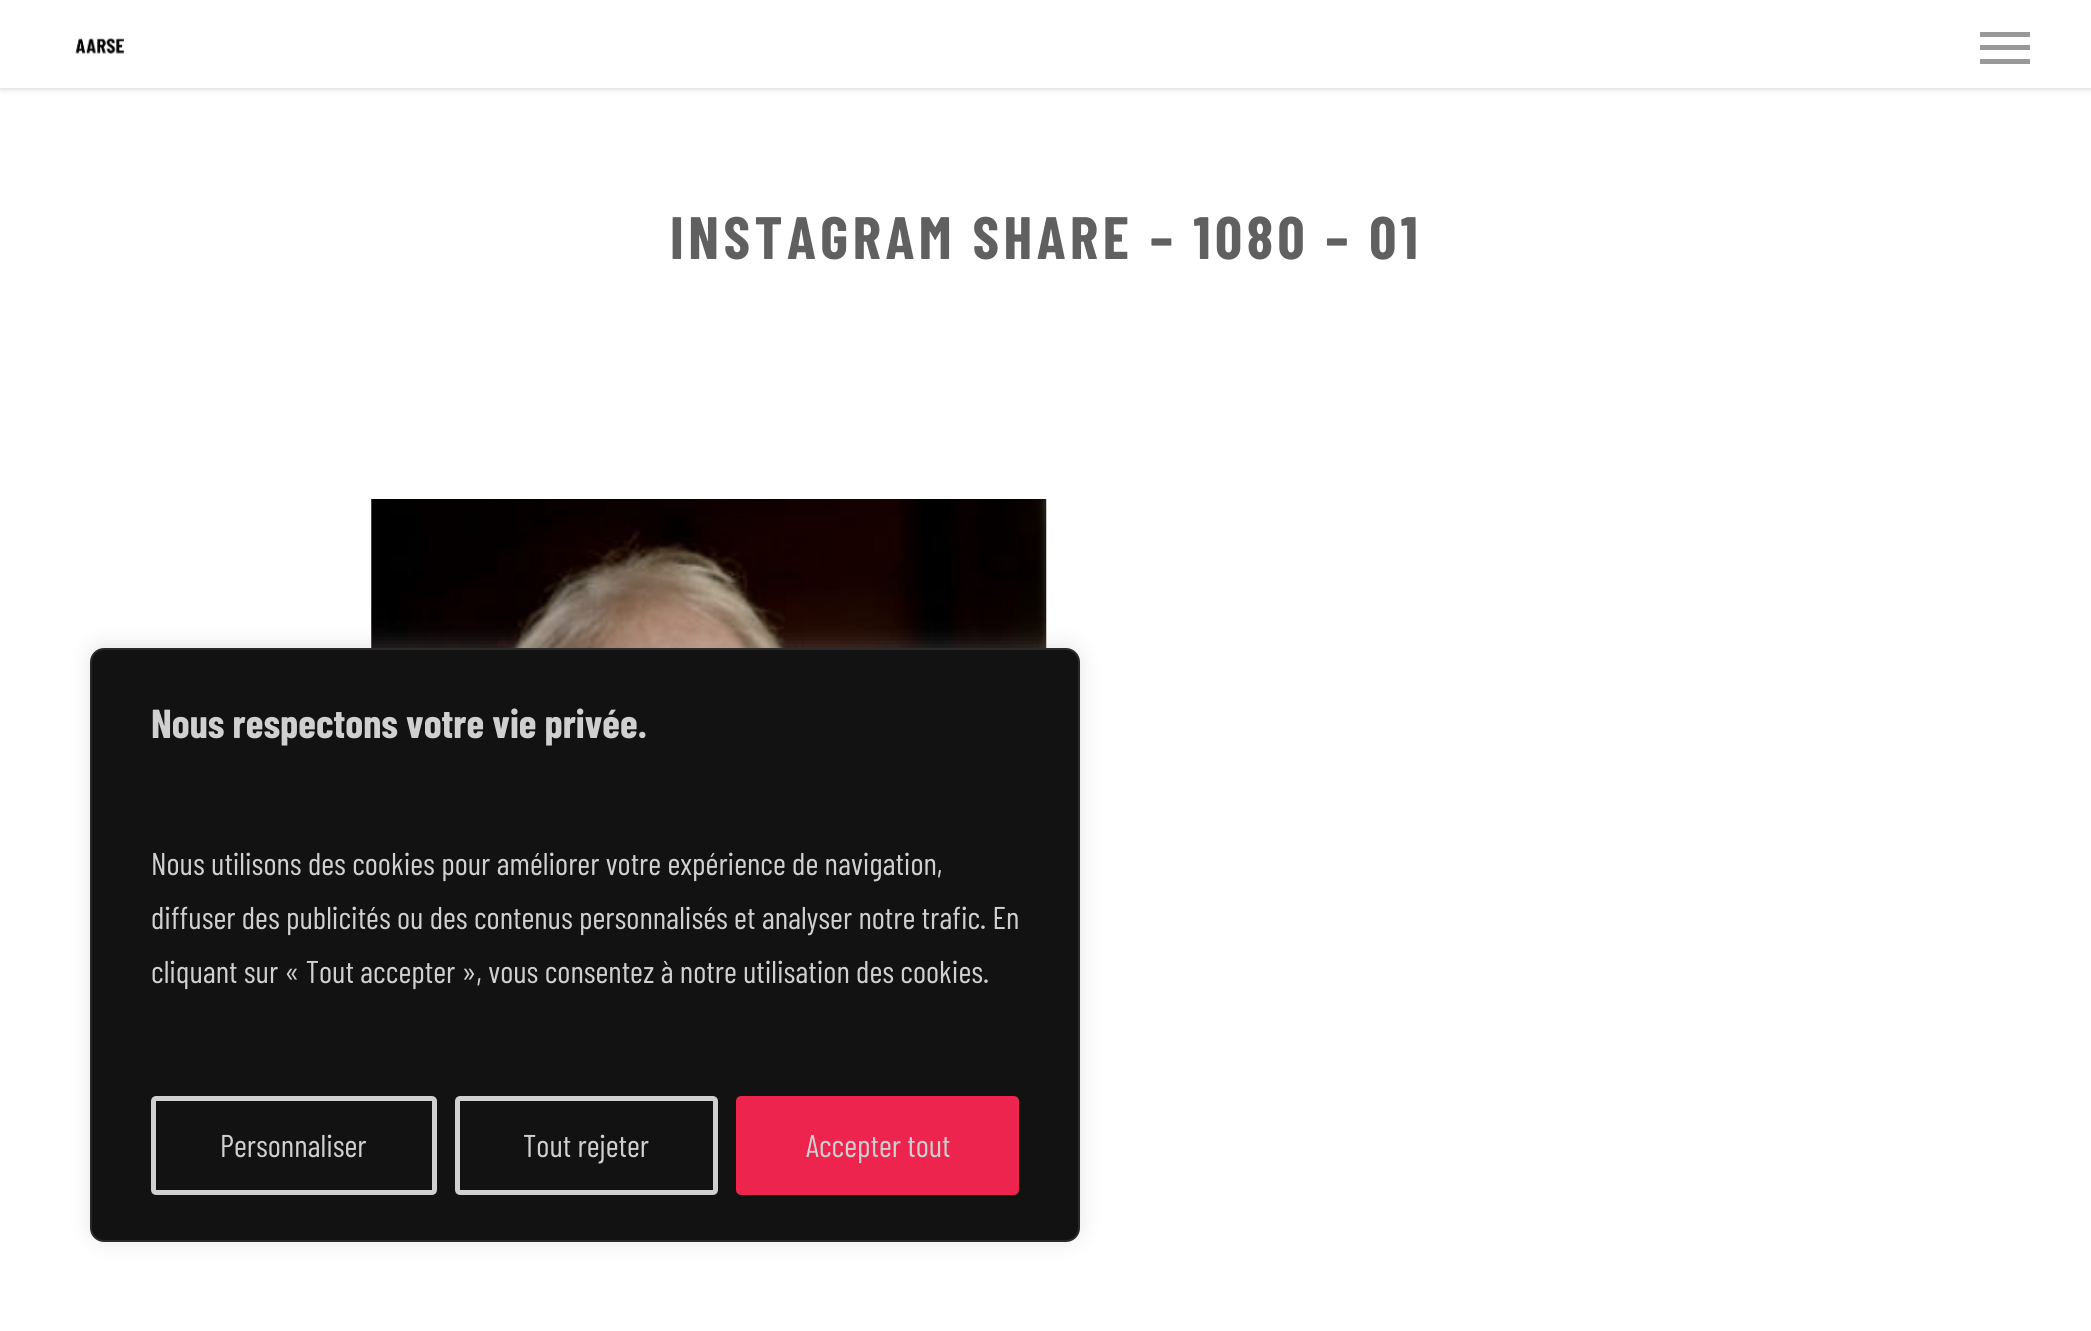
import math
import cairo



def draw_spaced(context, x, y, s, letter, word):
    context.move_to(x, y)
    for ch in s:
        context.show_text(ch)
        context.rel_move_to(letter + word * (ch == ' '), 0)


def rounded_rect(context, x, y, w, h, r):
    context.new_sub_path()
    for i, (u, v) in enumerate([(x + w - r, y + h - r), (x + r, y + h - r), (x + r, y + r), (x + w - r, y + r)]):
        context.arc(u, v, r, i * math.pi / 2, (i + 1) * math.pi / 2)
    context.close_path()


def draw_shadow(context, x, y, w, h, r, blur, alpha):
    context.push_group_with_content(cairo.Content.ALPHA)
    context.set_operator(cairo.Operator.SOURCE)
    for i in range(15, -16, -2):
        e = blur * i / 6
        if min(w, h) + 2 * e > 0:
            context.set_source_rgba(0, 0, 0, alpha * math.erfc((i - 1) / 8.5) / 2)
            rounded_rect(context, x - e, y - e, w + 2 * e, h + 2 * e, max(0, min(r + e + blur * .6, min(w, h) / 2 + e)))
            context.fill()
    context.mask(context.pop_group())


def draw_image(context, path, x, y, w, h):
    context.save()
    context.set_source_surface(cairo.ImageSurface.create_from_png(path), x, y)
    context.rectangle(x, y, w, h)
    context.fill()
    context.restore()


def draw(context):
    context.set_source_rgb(1, 1, 1)
    context.paint()
    context.set_source_rgb(0, 0, 0)
    draw_shadow(context, 0, 0, 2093, 88, 0, 3.5, 0.22)
    context.set_source_rgb(1, 1, 1)
    context.rectangle(0, 0, 2091, 88)
    context.fill()
    draw_image(context, "images/1.png", 75, 37, 49, 17)
    context.set_source_rgb(153 / 255, 153 / 255, 153 / 255)
    context.rectangle(1980, 32, 50, 5)
    context.fill()
    context.rectangle(1980, 59, 50, 5)
    context.fill()
    context.rectangle(1980, 45, 50, 5)
    context.fill()
    draw_image(context, "images/2.png", 371, 499, 676, 149)
    context.set_source_rgb(172 / 255, 171 / 255, 171 / 255)
    draw_shadow(context, 90, 646, 990, 594, 14, 11, 0.3)
    context.set_source_rgb(18 / 255, 18 / 255, 18 / 255)
    rounded_rect(context, 91, 649, 988, 592, 13)
    context.fill_preserve()
    context.set_source_rgb(42 / 255, 42 / 255, 42 / 255)
    context.stroke()
    rounded_rect(context, 153.5, 1098.5, 281, 94, 2.5)
    context.set_source_rgb(208 / 255, 208 / 255, 208 / 255)
    context.set_line_width(5)
    context.stroke()
    rounded_rect(context, 457.5, 1098.5, 258, 94, 2.5)
    context.stroke()
    context.set_source_rgb(237 / 255, 37 / 255, 78 / 255)
    rounded_rect(context, 738.5, 1098.5, 278, 94, 2.5)
    context.fill_preserve()
    context.stroke()
    context.select_font_face("Barlow Condensed", cairo.FontSlant.NORMAL, cairo.FontWeight.BOLD)
    context.set_font_size(59.8)
    context.set_source_rgb(96 / 255, 96 / 255, 96 / 255)
    draw_spaced(context, 670, 259, "INSTAGRAM SHARE – 1080 – 01", 4.5, 0)
    context.set_font_size(40.5)
    context.set_source_rgb(208 / 255, 208 / 255, 208 / 255)
    context.move_to(151, 738)
    context.show_text("Nous respectons votre vie privée.")
    context.select_font_face("Barlow Condensed")
    context.set_font_size(31.5)
    context.move_to(151, 875)
    context.show_text("Nous utilisons des cookies pour améliorer votre expérience de navigation,")
    context.move_to(151, 929)
    context.show_text("diffuser des publicités ou des contenus personnalisés et analyser notre trafic. En")
    context.move_to(151, 983)
    context.show_text("cliquant sur « Tout accepter », vous consentez à notre utilisation des cookies.")
    context.move_to(220, 1157)
    context.show_text("Personnaliser")
    context.move_to(523, 1157)
    context.show_text("Tout rejeter")
    context.move_to(806, 1157)
    context.show_text("Accepter tout")


surface = cairo.ImageSurface(cairo.Format.RGB24, 2091, 1331)
context = cairo.Context(surface)
options = cairo.FontOptions()
options.set_hint_metrics(cairo.HintMetrics.OFF)
options.set_hint_style(cairo.HintStyle.NONE)
context.set_font_options(options)
context.set_miter_limit(4)
draw(context)
surface.write_to_png("out.png")
